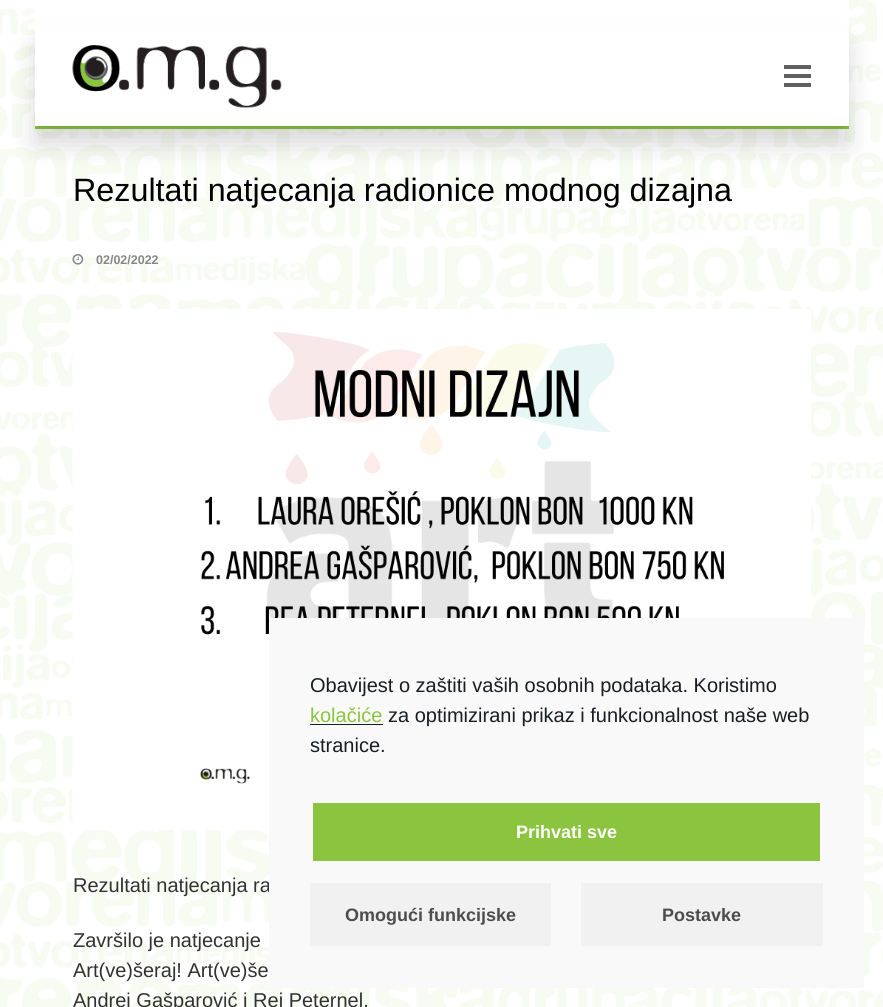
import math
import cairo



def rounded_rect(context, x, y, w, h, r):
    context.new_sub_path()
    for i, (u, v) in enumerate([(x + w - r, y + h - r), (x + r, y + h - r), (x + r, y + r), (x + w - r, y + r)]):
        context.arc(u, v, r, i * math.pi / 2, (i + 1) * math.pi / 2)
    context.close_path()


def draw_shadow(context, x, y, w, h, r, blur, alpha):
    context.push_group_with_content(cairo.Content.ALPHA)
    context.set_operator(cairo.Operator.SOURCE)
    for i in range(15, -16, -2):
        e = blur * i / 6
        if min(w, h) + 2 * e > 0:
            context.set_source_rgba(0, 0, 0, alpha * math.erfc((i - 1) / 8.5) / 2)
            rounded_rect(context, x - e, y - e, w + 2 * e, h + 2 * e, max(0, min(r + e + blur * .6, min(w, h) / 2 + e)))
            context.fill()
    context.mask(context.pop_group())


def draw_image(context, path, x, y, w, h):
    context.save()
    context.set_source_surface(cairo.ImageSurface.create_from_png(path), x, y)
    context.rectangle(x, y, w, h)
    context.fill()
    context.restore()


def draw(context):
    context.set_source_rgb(1, 1, 1)
    context.paint()
    draw_image(context, "images/1.png", 0, 0, 883, 1007)
    context.set_source_rgb(1, 1, 1)
    context.rectangle(35, 0, 814, 126)
    context.fill()
    context.set_source_rgb(139 / 255, 197 / 255, 63 / 255)
    context.rectangle(35, 126, 814, 3)
    context.fill()
    context.save()
    context.set_fill_rule(cairo.FillRule.EVEN_ODD)
    context.new_path()
    context.move_to(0, 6)
    context.line_to(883, 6)
    context.line_to(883, 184)
    context.line_to(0, 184)
    context.close_path()
    context.move_to(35, 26)
    context.line_to(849, 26)
    context.line_to(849, 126)
    context.line_to(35, 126)
    context.close_path()
    context.clip()
    context.set_source_rgb(0, 0, 0)
    draw_shadow(context, 35, 45, 814, 100, 0, 12.5, 0.15)
    context.restore()
    draw_image(context, "images/2.png", 72, 45, 210, 63)
    context.set_source_rgb(97 / 255, 97 / 255, 97 / 255)
    context.rectangle(784, 74, 27, 4)
    context.fill()
    context.rectangle(784, 65, 27, 4)
    context.fill()
    context.rectangle(784, 83, 27, 4)
    context.fill()
    draw_image(context, "images/3.png", 72, 254, 12, 11)
    draw_image(context, "images/4.png", 72, 309, 739, 521)
    context.select_font_face("Liberation Sans")
    context.set_font_size(32.3)
    context.set_source_rgb(0, 0, 0)
    context.move_to(73, 201)
    context.show_text("Rezultati natjecanja radionice modnog dizajna")
    context.select_font_face("Liberation Sans", cairo.FontSlant.NORMAL, cairo.FontWeight.BOLD)
    context.set_font_size(12.5)
    context.set_source_rgb(135 / 255, 135 / 255, 135 / 255)
    context.move_to(96, 264)
    context.show_text("02/02/2022")
    context.select_font_face("Liberation Sans")
    context.set_font_size(20)
    context.set_source_rgb(50 / 255, 50 / 255, 48 / 255)
    context.move_to(73, 892)
    context.show_text("Rezultati natjecanja ra")
    context.move_to(73, 947)
    context.show_text("Završilo je natjecanje")
    context.move_to(73, 977)
    context.show_text("Art(ve)šeraj! Art(ve)še")
    context.move_to(73, 1007)
    context.show_text("Andrei Gašparović i Rei Peternel.")
    context.set_source_rgb(249 / 255, 249 / 255, 249 / 255)
    context.rectangle(269, 618, 595, 370)
    context.fill()
    context.set_source_rgb(25 / 255, 30 / 255, 35 / 255)
    context.move_to(310, 692)
    context.show_text("Obavijest o zaštiti vaših osobnih podataka. Koristimo")
    context.set_source_rgb(139 / 255, 197 / 255, 63 / 255)
    context.move_to(310, 722)
    context.show_text("kolačiće")
    context.set_source_rgb(25 / 255, 30 / 255, 35 / 255)
    context.rectangle(310, 724, 73, 1)
    context.fill()
    context.move_to(388, 722)
    context.show_text("za optimizirani prikaz i funkcionalnost naše web")
    context.move_to(310, 752)
    context.show_text("stranice.")
    context.set_source_rgb(139 / 255, 197 / 255, 63 / 255)
    context.rectangle(313, 803, 507, 58)
    context.fill()
    context.select_font_face("Liberation Sans", cairo.FontSlant.NORMAL, cairo.FontWeight.BOLD)
    context.set_font_size(18)
    context.set_source_rgb(1, 1, 1)
    context.move_to(516, 838)
    context.show_text("Prihvati sve")
    context.set_source_rgb(241 / 255, 241 / 255, 241 / 255)
    context.rectangle(310, 883, 241, 63)
    context.fill()
    context.set_source_rgb(77 / 255, 77 / 255, 79 / 255)
    context.move_to(345, 921)
    context.show_text("Omogući funkcijske")
    context.set_source_rgb(241 / 255, 241 / 255, 241 / 255)
    context.rectangle(581, 883, 242, 63)
    context.fill()
    context.set_source_rgb(77 / 255, 77 / 255, 79 / 255)
    context.move_to(662, 921)
    context.show_text("Postavke")


surface = cairo.ImageSurface(cairo.Format.RGB24, 883, 1007)
context = cairo.Context(surface)
options = cairo.FontOptions()
options.set_hint_metrics(cairo.HintMetrics.OFF)
options.set_hint_style(cairo.HintStyle.NONE)
context.set_font_options(options)
context.set_miter_limit(4)
draw(context)
surface.write_to_png("out.png")
